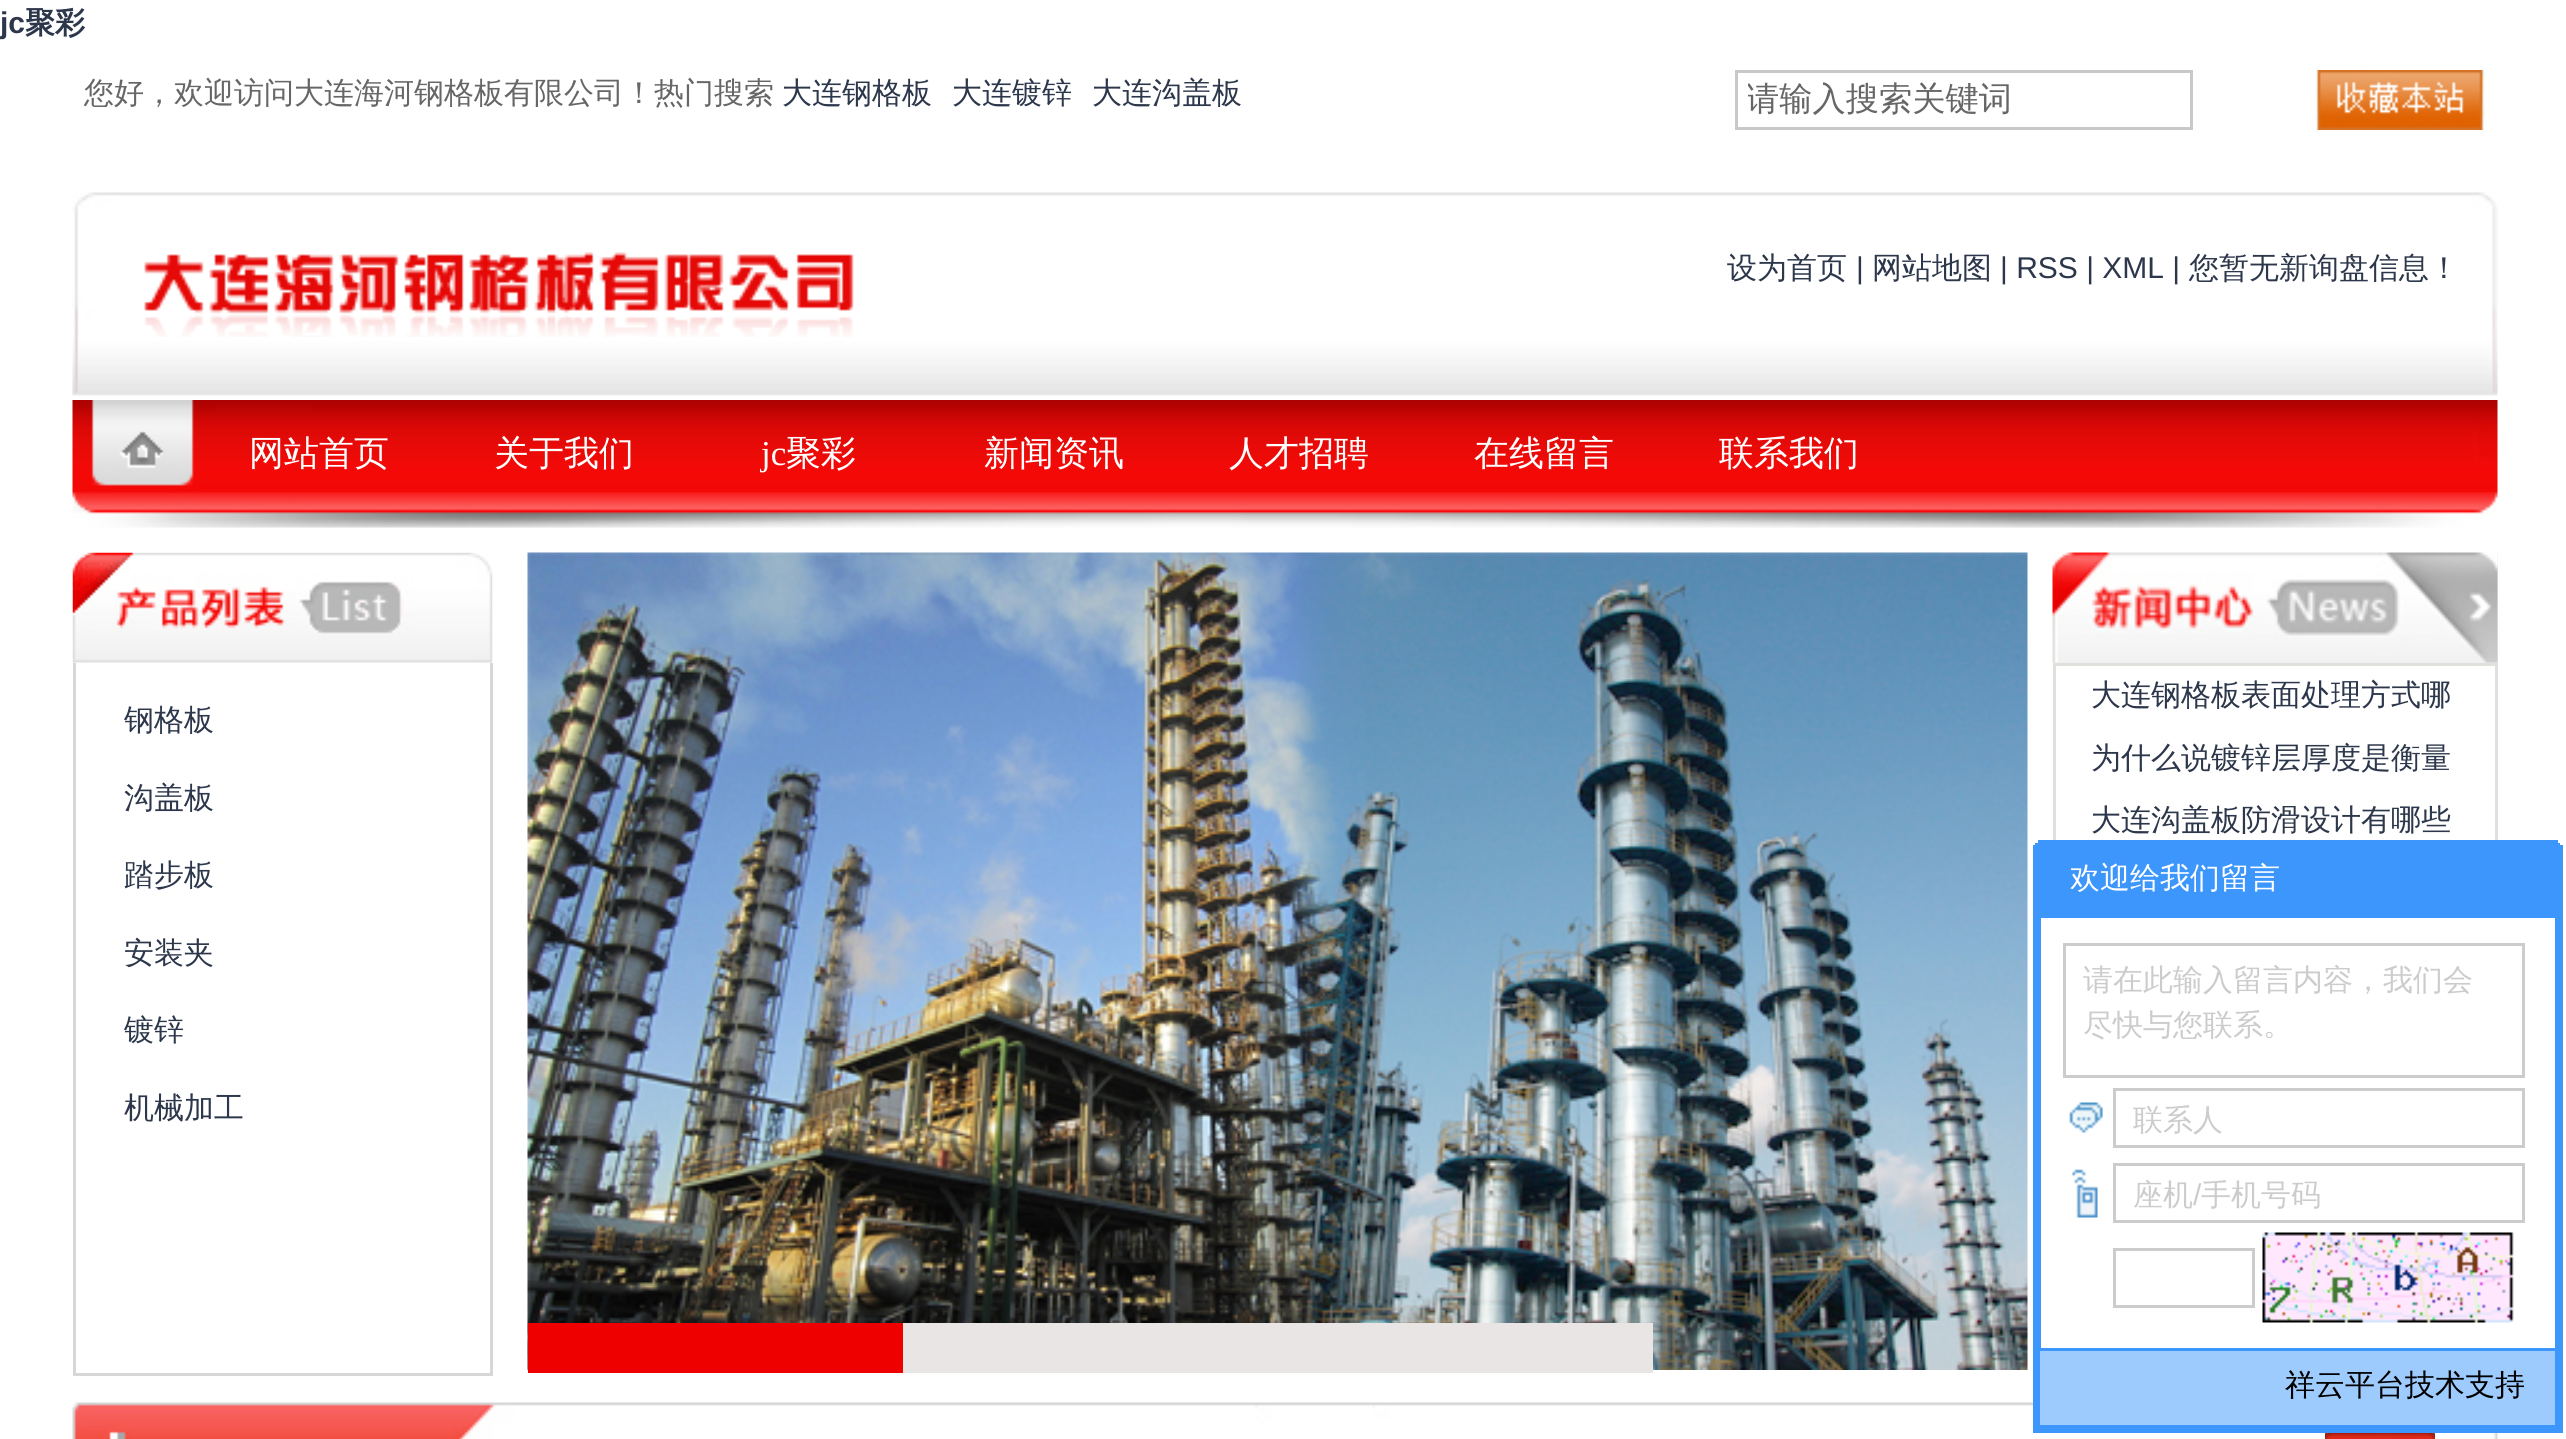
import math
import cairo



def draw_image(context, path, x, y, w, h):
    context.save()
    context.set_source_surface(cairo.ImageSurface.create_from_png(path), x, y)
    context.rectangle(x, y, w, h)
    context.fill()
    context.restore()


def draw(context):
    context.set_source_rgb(1, 1, 1)
    context.paint()
    context.rectangle(1736.5, 71.5, 455, 57)
    context.set_source_rgb(200 / 255, 200 / 255, 200 / 255)
    context.set_line_width(3)
    context.stroke()
    draw_image(context, "images/1.png", 2315, 70, 170, 60)
    draw_image(context, "images/2.png", 72, 192, 2426, 204)
    draw_image(context, "images/3.png", 144, 252, 710, 85)
    draw_image(context, "images/4.png", 72, 400, 2426, 128)
    draw_image(context, "images/5.png", 72, 552, 421, 111)
    context.set_source_rgb(215 / 255, 215 / 255, 215 / 255)
    context.rectangle(490, 663, 3, 712)
    context.fill()
    context.rectangle(73, 1373, 420, 3)
    context.fill()
    context.rectangle(73, 663, 3, 712)
    context.fill()
    draw_image(context, "images/6.png", 527, 552, 1501, 818)
    context.set_source_rgb(239 / 255, 0, 0)
    context.rectangle(528, 1323, 375, 50)
    context.fill()
    context.set_source_rgb(233 / 255, 229 / 255, 229 / 255)
    context.rectangle(903, 1323, 750, 50)
    context.fill()
    context.set_source_rgb(236 / 255, 236 / 255, 236 / 255)
    context.rectangle(2053, 553, 445, 110)
    context.fill()
    draw_image(context, "images/7.png", 2052, 552, 446, 111)
    context.rectangle(2054.5, 664.5, 442, 707)
    context.set_source_rgb(224 / 255, 225 / 255, 220 / 255)
    context.stroke()
    draw_image(context, "images/8.png", 72, 1402, 2426, 37)
    draw_image(context, "images/9.png", 2325, 1433, 110, 6)
    context.set_source_rgb(60 / 255, 150 / 255, 252 / 255)
    context.rectangle(2038, 840, 520, 3)
    context.fill()
    context.rectangle(2035, 843, 525, 2)
    context.fill()
    context.rectangle(2033, 845, 530, 65)
    context.fill()
    context.set_source_rgb(1, 1, 1)
    context.rectangle(2053, 918, 445, 430)
    context.fill()
    context.rectangle(2037, 914, 522, 515)
    context.set_source_rgb(60 / 255, 150 / 255, 252 / 255)
    context.set_line_width(8)
    context.stroke()
    context.rectangle(2064.5, 944.5, 459, 132)
    context.set_source_rgb(204 / 255, 204 / 255, 204 / 255)
    context.set_line_width(3)
    context.stroke()
    draw_image(context, "images/10.png", 2069, 1102, 34, 31)
    context.rectangle(2114.5, 1089.5, 409, 57)
    context.stroke()
    draw_image(context, "images/11.png", 2072, 1169, 26, 49)
    context.rectangle(2114.5, 1164.5, 409, 57)
    context.stroke()
    context.rectangle(2114.5, 1249.5, 139, 57)
    context.stroke()
    draw_image(context, "images/12.png", 2262, 1232, 252, 91)
    context.set_source_rgb(157 / 255, 203 / 255, 254 / 255)
    context.rectangle(2040, 1351, 515, 74)
    context.fill()
    context.set_source_rgb(60 / 255, 150 / 255, 252 / 255)
    context.rectangle(2040, 1348, 515, 3)
    context.fill()
    context.select_font_face("Liberation Sans", cairo.FontSlant.NORMAL, cairo.FontWeight.BOLD)
    context.set_font_size(30)
    context.set_source_rgb(45 / 255, 55 / 255, 75 / 255)
    context.move_to(0, 33)
    context.show_text("jc")
    context.select_font_face("WenQuanYi Zen Hei", cairo.FontSlant.NORMAL, cairo.FontWeight.BOLD)
    context.move_to(25, 33)
    context.show_text("聚彩")
    context.select_font_face("WenQuanYi Zen Hei Medium")
    context.set_source_rgb(102 / 255, 102 / 255, 102 / 255)
    context.move_to(84, 103)
    context.show_text("您好，欢迎访问大连海河钢格板有限公司！热门搜索")
    context.set_source_rgb(45 / 255, 55 / 255, 75 / 255)
    context.move_to(782, 103)
    context.show_text("大连钢格板")
    context.move_to(952, 103)
    context.show_text("大连镀锌")
    context.move_to(1092, 103)
    context.show_text("大连沟盖板")
    context.save()
    context.rectangle(1748, 73, 442, 55)
    context.clip()
    context.set_font_size(33.25)
    context.set_source_rgb(102 / 255, 102 / 255, 102 / 255)
    context.move_to(1746, 110)
    context.show_text("请输入搜索关键词")
    context.restore()
    context.move_to(1727, 278)
    context.show_text("设为首页")
    context.select_font_face("Liberation Sans")
    context.move_to(1856, 278)
    context.show_text("|")
    context.select_font_face("WenQuanYi Zen Hei Medium")
    context.move_to(1872, 278)
    context.show_text("网站地图")
    context.select_font_face("Liberation Sans")
    context.move_to(2000, 278)
    context.show_text("| RSS | XML |")
    context.select_font_face("WenQuanYi Zen Hei Medium")
    context.move_to(2189, 278)
    context.show_text("您暂无新询盘信息！")
    context.set_font_size(35)
    context.set_source_rgb(1, 1, 1)
    context.move_to(249, 465)
    context.show_text("网站首页")
    context.move_to(494, 465)
    context.show_text("关于我们")
    context.select_font_face("Liberation Serif")
    context.move_to(761, 465)
    context.show_text("jc")
    context.select_font_face("WenQuanYi Zen Hei Medium")
    context.move_to(786, 465)
    context.show_text("聚彩")
    context.move_to(984, 465)
    context.show_text("新闻资讯")
    context.move_to(1229, 465)
    context.show_text("人才招聘")
    context.move_to(1474, 465)
    context.show_text("在线留言")
    context.move_to(1719, 465)
    context.show_text("联系我们")
    context.set_font_size(30)
    context.set_source_rgb(45 / 255, 55 / 255, 75 / 255)
    context.move_to(124, 730)
    context.show_text("钢格板")
    context.move_to(124, 808)
    context.show_text("沟盖板")
    context.move_to(124, 885)
    context.show_text("踏步板")
    context.move_to(124, 963)
    context.show_text("安装夹")
    context.move_to(124, 1040)
    context.show_text("镀锌")
    context.move_to(124, 1118)
    context.show_text("机械加工")
    context.move_to(2091, 705)
    context.show_text("大连钢格板表面处理方式哪")
    context.move_to(2091, 768)
    context.show_text("为什么说镀锌层厚度是衡量")
    context.move_to(2091, 830)
    context.show_text("大连沟盖板防滑设计有哪些")
    context.set_source_rgb(1, 1, 1)
    context.move_to(2070, 888)
    context.show_text("欢迎给我们留言")
    context.set_source_rgb(204 / 255, 204 / 255, 204 / 255)
    context.move_to(2083, 990)
    context.show_text("请在此输入留言内容，我们会")
    context.move_to(2083, 1035)
    context.show_text("尽快与您联系。")
    context.move_to(2133, 1130)
    context.show_text("联系人")
    context.move_to(2133, 1205)
    context.show_text("座机")
    context.select_font_face("Liberation Sans")
    context.move_to(2193, 1205)
    context.show_text("/")
    context.select_font_face("WenQuanYi Zen Hei Medium")
    context.move_to(2201, 1205)
    context.show_text("手机号码")
    context.set_source_rgb(0, 0, 0)
    context.move_to(2285, 1395)
    context.show_text("祥云平台技术支持")


surface = cairo.ImageSurface(cairo.Format.RGB24, 2566, 1439)
context = cairo.Context(surface)
options = cairo.FontOptions()
options.set_hint_metrics(cairo.HintMetrics.OFF)
options.set_hint_style(cairo.HintStyle.NONE)
context.set_font_options(options)
context.set_miter_limit(4)
draw(context)
surface.write_to_png("out.png")
